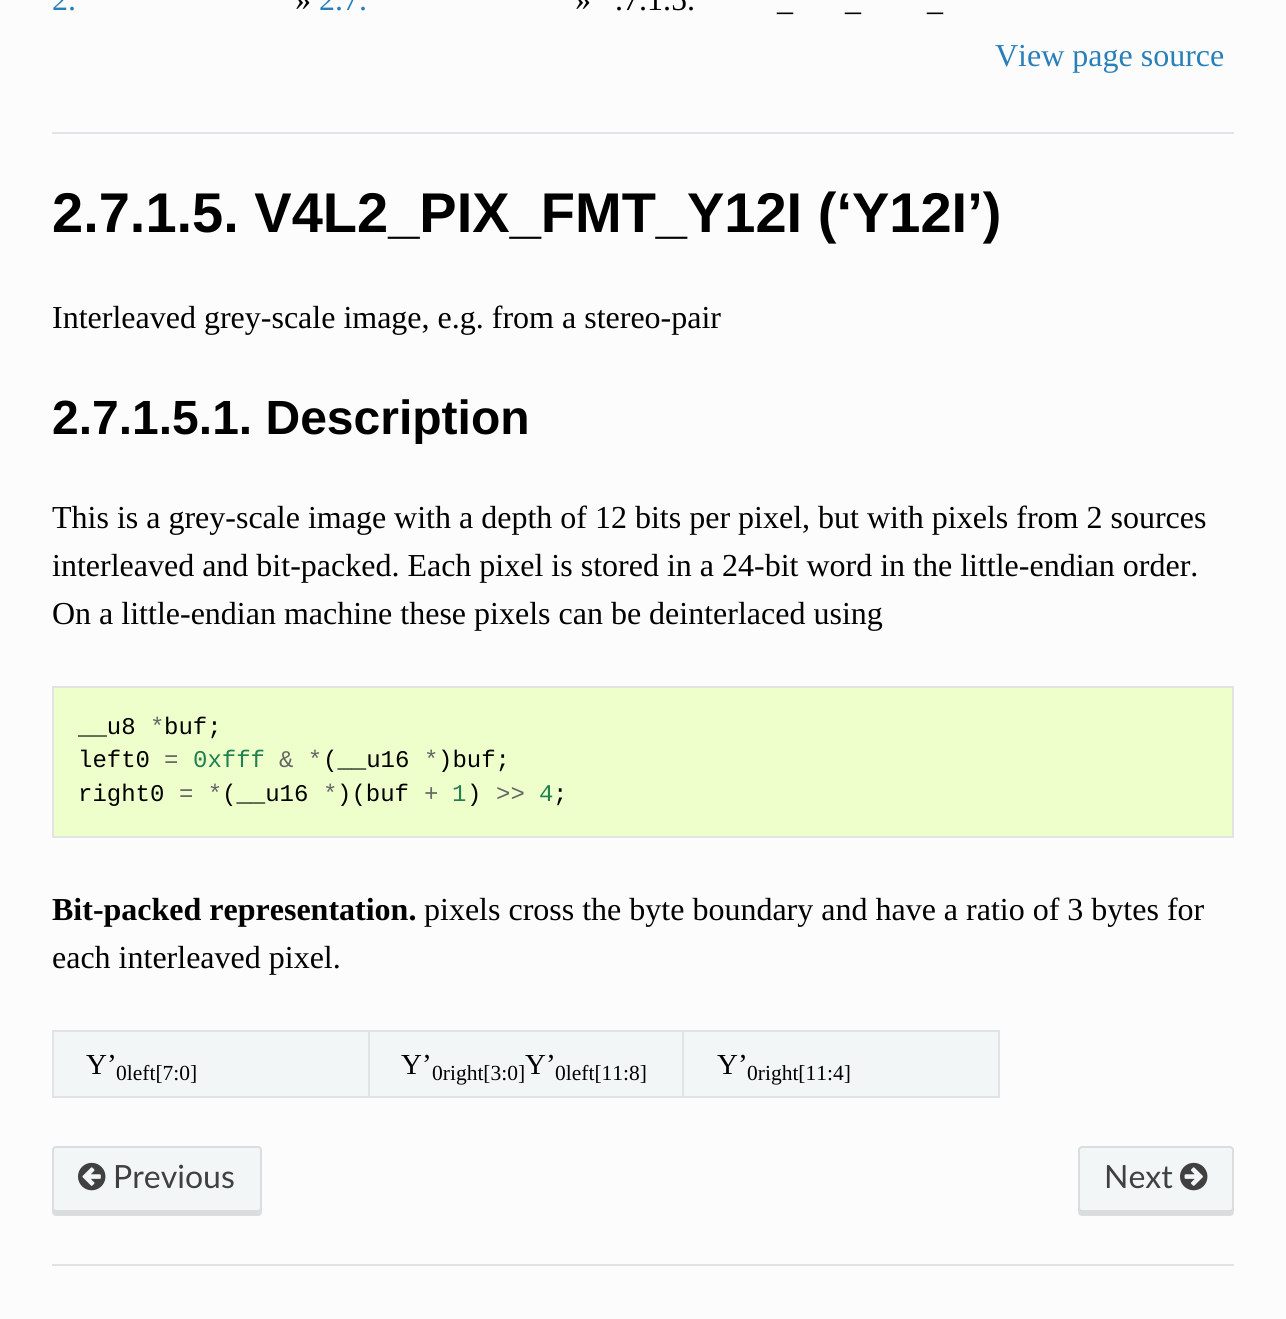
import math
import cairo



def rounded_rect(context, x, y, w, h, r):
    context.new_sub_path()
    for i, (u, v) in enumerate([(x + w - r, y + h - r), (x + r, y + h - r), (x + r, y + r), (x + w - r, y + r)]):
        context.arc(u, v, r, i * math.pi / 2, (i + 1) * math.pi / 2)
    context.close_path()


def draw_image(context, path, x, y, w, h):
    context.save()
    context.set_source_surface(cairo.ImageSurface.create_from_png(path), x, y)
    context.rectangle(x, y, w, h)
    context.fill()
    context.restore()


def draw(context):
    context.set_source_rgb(252 / 255, 252 / 255, 252 / 255)
    context.paint()
    context.set_source_rgb(225 / 255, 228 / 255, 229 / 255)
    context.rectangle(52, 132, 1182, 2)
    context.fill()
    context.rectangle(53, 687, 1180, 150)
    context.stroke()
    context.set_source_rgb(238 / 255, 1, 204 / 255)
    context.rectangle(54, 688, 1178, 148)
    context.fill()
    context.set_source_rgb(225 / 255, 228 / 255, 229 / 255)
    context.rectangle(52, 1030, 948, 2)
    context.fill()
    context.rectangle(998, 1030, 2, 68)
    context.fill()
    context.rectangle(52, 1096, 948, 2)
    context.fill()
    context.rectangle(52, 1030, 2, 68)
    context.fill()
    context.set_source_rgb(243 / 255, 246 / 255, 246 / 255)
    context.rectangle(54, 1032, 314, 64)
    context.fill()
    context.rectangle(370, 1032, 312, 64)
    context.fill()
    context.set_source_rgb(225 / 255, 228 / 255, 229 / 255)
    context.rectangle(368, 1030, 2, 68)
    context.fill()
    context.set_source_rgb(243 / 255, 246 / 255, 246 / 255)
    context.rectangle(684, 1032, 314, 64)
    context.fill()
    context.set_source_rgb(225 / 255, 228 / 255, 229 / 255)
    context.rectangle(682, 1030, 2, 68)
    context.fill()
    context.set_source_rgb(243 / 255, 246 / 255, 246 / 255)
    rounded_rect(context, 52, 1146, 210, 70, 4)
    context.fill()
    context.set_source_rgb(219 / 255, 221 / 255, 221 / 255)
    context.new_path()
    context.move_to(54, 1208)
    context.line_to(54, 1212)
    context.curve_to(54, 1213, 55, 1214, 56, 1214)
    context.line_to(258, 1214)
    context.curve_to(259, 1214, 260, 1213, 260, 1212)
    context.line_to(260, 1208)
    context.curve_to(260, 1209, 259, 1210, 258, 1210)
    context.line_to(56, 1210)
    context.line_to(54, 1209)
    context.close_path()
    context.fill()
    rounded_rect(context, 53, 1147, 208, 68, 3)
    context.set_source_rgba(0, 0, 0, 0.1)
    context.stroke()
    draw_image(context, "images/1.png", 78, 1162, 28, 29)
    context.set_source_rgb(243 / 255, 246 / 255, 246 / 255)
    rounded_rect(context, 1078, 1146, 156, 70, 4)
    context.fill()
    context.set_source_rgb(219 / 255, 221 / 255, 221 / 255)
    context.new_path()
    context.move_to(1080, 1208)
    context.line_to(1080, 1212)
    context.curve_to(1080, 1213, 1081, 1214, 1082, 1214)
    context.line_to(1230, 1214)
    context.curve_to(1231, 1214, 1232, 1213, 1232, 1212)
    context.line_to(1232, 1208)
    context.curve_to(1232, 1209, 1231, 1210, 1230, 1210)
    context.line_to(1082, 1210)
    context.curve_to(1081, 1210, 1080, 1209, 1080, 1208)
    context.close_path()
    context.fill()
    rounded_rect(context, 1079, 1147, 154, 68, 3)
    context.set_source_rgba(0, 0, 0, 0.1)
    context.stroke()
    draw_image(context, "images/2.png", 1180, 1162, 28, 29)
    context.set_source_rgb(225 / 255, 228 / 255, 229 / 255)
    context.rectangle(52, 1264, 1182, 2)
    context.fill()
    context.select_font_face("Liberation Serif")
    context.set_font_size(32)
    context.set_source_rgb(41 / 255, 128 / 255, 185 / 255)
    context.move_to(52, 10)
    context.show_text("2.")
    context.set_source_rgb(0, 0, 0)
    context.move_to(295, 10)
    context.show_text("»")
    context.set_source_rgb(41 / 255, 128 / 255, 185 / 255)
    context.move_to(319, 10)
    context.show_text("2.7.")
    context.set_source_rgb(0, 0, 0)
    context.move_to(575, 10)
    context.show_text("»")
    context.move_to(615, 10)
    context.show_text(".7.1.5.")
    context.move_to(777, 10)
    context.show_text("_")
    context.move_to(845, 10)
    context.show_text("_")
    context.move_to(927, 10)
    context.show_text("_")
    context.set_source_rgb(41 / 255, 128 / 255, 185 / 255)
    context.move_to(995, 66)
    context.show_text("View page source")
    context.select_font_face("Liberation Sans", cairo.FontSlant.NORMAL, cairo.FontWeight.BOLD)
    context.set_font_size(56)
    context.set_source_rgb(0, 0, 0)
    context.move_to(52, 232)
    context.show_text("2.7.1.5. V4L2_PIX_FMT_Y12I (‘Y12I’)")
    context.select_font_face("Liberation Serif")
    context.set_font_size(32)
    context.move_to(52, 328)
    context.show_text("Interleaved grey-scale image, e.g. from a stereo-pair")
    context.select_font_face("Liberation Sans", cairo.FontSlant.NORMAL, cairo.FontWeight.BOLD)
    context.set_font_size(48)
    context.move_to(52, 434)
    context.show_text("2.7.1.5.1. Description")
    context.select_font_face("Liberation Serif")
    context.set_font_size(32)
    context.move_to(52, 528)
    context.show_text("This is a grey-scale image with a depth of 12 bits per pixel, but with pixels from 2 sources")
    context.move_to(52, 576)
    context.show_text("interleaved and bit-packed. Each pixel is stored in a 24-bit word in the little-endian order.")
    context.move_to(52, 624)
    context.show_text("On a little-endian machine these pixels can be deinterlaced using")
    context.select_font_face("Liberation Mono")
    context.set_font_size(24)
    context.move_to(78, 734)
    context.show_text("__u8")
    context.set_source_rgb(102 / 255, 102 / 255, 102 / 255)
    context.move_to(150, 734)
    context.show_text("*")
    context.set_source_rgb(0, 0, 0)
    context.move_to(164, 734)
    context.show_text("buf;")
    context.move_to(78, 767)
    context.show_text("left0")
    context.set_source_rgb(102 / 255, 102 / 255, 102 / 255)
    context.move_to(164, 767)
    context.show_text("=")
    context.set_source_rgb(32 / 255, 128 / 255, 80 / 255)
    context.move_to(193, 767)
    context.show_text("0xfff")
    context.set_source_rgb(102 / 255, 102 / 255, 102 / 255)
    context.move_to(279, 767)
    context.show_text("& *")
    context.set_source_rgb(0, 0, 0)
    context.move_to(323, 767)
    context.show_text("(__u16")
    context.set_source_rgb(102 / 255, 102 / 255, 102 / 255)
    context.move_to(424, 767)
    context.show_text("*")
    context.set_source_rgb(0, 0, 0)
    context.move_to(438, 767)
    context.show_text(")buf;")
    context.move_to(78, 801)
    context.show_text("right0")
    context.set_source_rgb(102 / 255, 102 / 255, 102 / 255)
    context.move_to(179, 801)
    context.show_text("= *")
    context.set_source_rgb(0, 0, 0)
    context.move_to(222, 801)
    context.show_text("(__u16")
    context.set_source_rgb(102 / 255, 102 / 255, 102 / 255)
    context.move_to(323, 801)
    context.show_text("*")
    context.set_source_rgb(0, 0, 0)
    context.move_to(337, 801)
    context.show_text(")(buf")
    context.set_source_rgb(102 / 255, 102 / 255, 102 / 255)
    context.move_to(424, 801)
    context.show_text("+")
    context.set_source_rgb(32 / 255, 128 / 255, 80 / 255)
    context.move_to(452, 801)
    context.show_text("1")
    context.set_source_rgb(0, 0, 0)
    context.move_to(467, 801)
    context.show_text(")")
    context.set_source_rgb(102 / 255, 102 / 255, 102 / 255)
    context.move_to(496, 801)
    context.show_text(">>")
    context.set_source_rgb(32 / 255, 128 / 255, 80 / 255)
    context.move_to(539, 801)
    context.show_text("4")
    context.set_source_rgb(0, 0, 0)
    context.move_to(553, 801)
    context.show_text(";")
    context.select_font_face("Liberation Serif", cairo.FontSlant.NORMAL, cairo.FontWeight.BOLD)
    context.set_font_size(32)
    context.move_to(52, 920)
    context.show_text("Bit-packed representation.")
    context.select_font_face("Liberation Serif")
    context.move_to(424, 920)
    context.show_text("pixels cross the byte boundary and have a ratio of 3 bytes for")
    context.move_to(52, 968)
    context.show_text("each interleaved pixel.")
    context.set_font_size(29)
    context.move_to(86, 1074)
    context.show_text("Y’")
    context.set_font_size(21.5)
    context.move_to(116, 1080)
    context.show_text("0left[7:0]")
    context.set_font_size(29)
    context.move_to(401, 1074)
    context.show_text("Y’")
    context.set_font_size(21.5)
    context.move_to(432, 1080)
    context.show_text("0right[3:0]")
    context.set_font_size(29)
    context.move_to(525, 1074)
    context.show_text("Y’")
    context.set_font_size(21.5)
    context.move_to(555, 1080)
    context.show_text("0left[11:8]")
    context.set_font_size(29)
    context.move_to(717, 1074)
    context.show_text("Y’")
    context.set_font_size(21.5)
    context.move_to(747, 1080)
    context.show_text("0right[11:4]")
    context.select_font_face("Lato")
    context.set_font_size(32)
    context.set_source_rgb(64 / 255, 64 / 255, 64 / 255)
    context.move_to(113, 1188)
    context.show_text("Previous")
    context.move_to(1104, 1188)
    context.show_text("Next")


surface = cairo.ImageSurface(cairo.Format.RGB24, 1286, 1319)
context = cairo.Context(surface)
options = cairo.FontOptions()
options.set_hint_metrics(cairo.HintMetrics.OFF)
options.set_hint_style(cairo.HintStyle.NONE)
context.set_font_options(options)
context.set_miter_limit(4)
draw(context)
surface.write_to_png("out.png")
